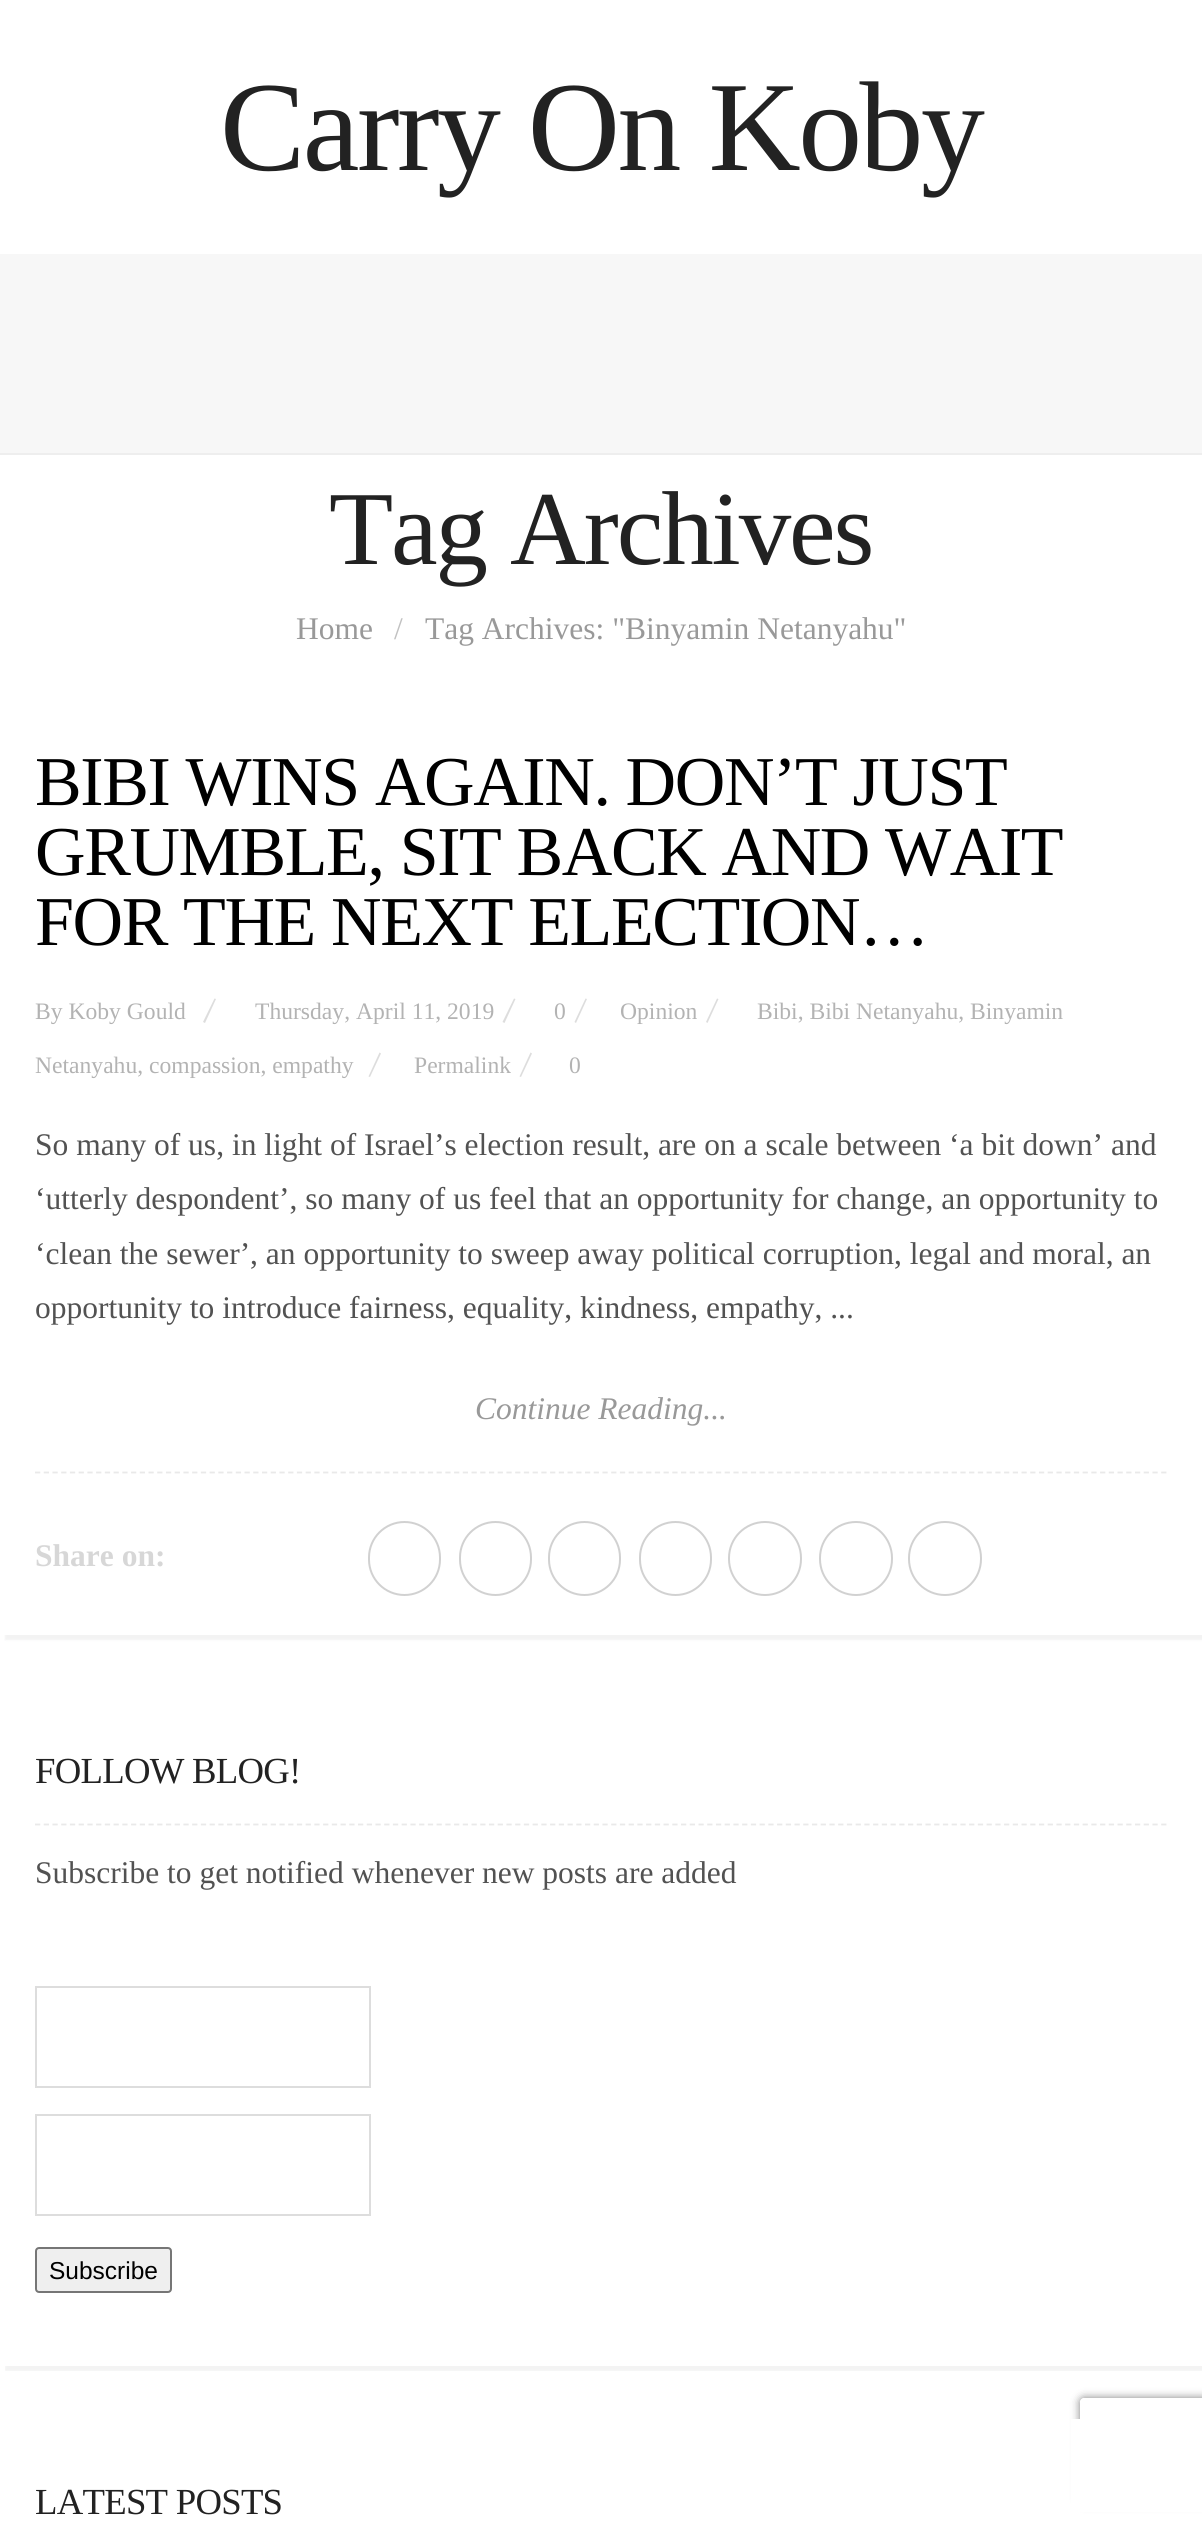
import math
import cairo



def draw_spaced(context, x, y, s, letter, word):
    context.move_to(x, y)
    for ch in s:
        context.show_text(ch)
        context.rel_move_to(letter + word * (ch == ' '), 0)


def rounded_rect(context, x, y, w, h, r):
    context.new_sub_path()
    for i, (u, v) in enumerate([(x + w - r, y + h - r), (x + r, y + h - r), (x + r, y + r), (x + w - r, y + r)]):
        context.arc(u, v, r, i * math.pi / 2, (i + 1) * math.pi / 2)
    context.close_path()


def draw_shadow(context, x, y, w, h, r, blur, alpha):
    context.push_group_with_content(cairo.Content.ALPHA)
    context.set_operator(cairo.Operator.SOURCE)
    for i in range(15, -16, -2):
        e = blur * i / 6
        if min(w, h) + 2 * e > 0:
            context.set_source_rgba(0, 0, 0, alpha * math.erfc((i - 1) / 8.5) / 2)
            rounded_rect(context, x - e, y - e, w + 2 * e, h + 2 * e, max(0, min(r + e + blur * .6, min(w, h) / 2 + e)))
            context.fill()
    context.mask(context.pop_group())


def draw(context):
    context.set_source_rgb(1, 1, 1)
    context.paint()
    context.set_source_rgb(247 / 255, 247 / 255, 247 / 255)
    context.rectangle(0, 254, 1202, 199)
    context.fill()
    context.set_source_rgb(238 / 255, 238 / 255, 238 / 255)
    context.rectangle(0, 453, 1202, 2)
    context.fill()
    context.set_source_rgb(0, 0, 0)
    draw_shadow(context, 5, 697, 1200, 943, 0, 1, 0.05)
    context.set_source_rgb(1, 1, 1)
    context.rectangle(4, 696, 1198, 939)
    context.fill()
    context.set_source_rgb(221 / 255, 221 / 255, 221 / 255)
    context.new_path()
    context.move_to(214.5, 998.5)
    context.line_to(216, 999)
    context.line_to(205, 1023)
    context.line_to(203, 1022)
    context.close_path()
    context.fill()
    context.new_path()
    context.move_to(379.5, 1052.5)
    context.line_to(381, 1053.5)
    context.line_to(370, 1077)
    context.line_to(368.5, 1076.5)
    context.close_path()
    context.fill()
    context.new_path()
    context.move_to(514, 998.5)
    context.line_to(515.5, 999)
    context.line_to(504.5, 1023)
    context.line_to(502.5, 1022)
    context.close_path()
    context.fill()
    context.new_path()
    context.move_to(585.5, 998.5)
    context.line_to(587, 999)
    context.line_to(576, 1023)
    context.line_to(574.5, 1022)
    context.close_path()
    context.fill()
    context.new_path()
    context.move_to(717, 998.5)
    context.line_to(718.5, 999)
    context.line_to(707.5, 1023)
    context.line_to(706, 1022)
    context.close_path()
    context.fill()
    context.new_path()
    context.move_to(530.5, 1052.5)
    context.line_to(532, 1053.5)
    context.line_to(521, 1077)
    context.line_to(519.5, 1076.5)
    context.close_path()
    context.fill()
    context.new_path()
    context.move_to(35, 1472.5)
    context.line_to(1167, 1472.5)
    context.set_source_rgb(233 / 255, 233 / 255, 233 / 255)
    context.set_line_width(1.8)
    context.set_dash([5.25, 3.48])
    context.stroke()
    rounded_rect(context, 369, 1522, 71, 73, 35.5)
    context.set_source_rgb(209 / 255, 209 / 255, 209 / 255)
    context.set_line_width(2)
    context.set_dash([])
    context.stroke()
    rounded_rect(context, 460, 1522, 71, 73, 35.5)
    context.stroke()
    rounded_rect(context, 549, 1522, 71, 73, 35.5)
    context.stroke()
    rounded_rect(context, 640, 1522, 71, 73, 35.5)
    context.stroke()
    rounded_rect(context, 729, 1522, 72, 73, 36)
    context.stroke()
    rounded_rect(context, 820, 1522, 72, 73, 36)
    context.stroke()
    rounded_rect(context, 909, 1522, 72, 73, 36)
    context.stroke()
    context.save()
    context.rectangle(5, 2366, 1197, 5)
    context.clip()
    context.set_source_rgb(0, 0, 0)
    draw_shadow(context, 5, 1692, 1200, 679, 0, 1, 0.05)
    context.restore()
    context.new_path()
    context.move_to(35, 1824.5)
    context.line_to(1167, 1824.5)
    context.set_source_rgb(233 / 255, 233 / 255, 233 / 255)
    context.set_line_width(1.8)
    context.set_dash([5.25, 3.48])
    context.stroke()
    context.rectangle(36, 1987, 334, 100)
    context.set_source_rgb(221 / 255, 221 / 255, 221 / 255)
    context.set_line_width(2)
    context.set_dash([])
    context.stroke()
    context.rectangle(36, 2115, 334, 100)
    context.stroke()
    context.set_source_rgb(239 / 255, 239 / 255, 239 / 255)
    rounded_rect(context, 36, 2248, 135, 44, 3)
    context.fill_preserve()
    context.set_source_rgb(118 / 255, 118 / 255, 118 / 255)
    context.stroke()
    context.save()
    context.set_fill_rule(cairo.FillRule.EVEN_ODD)
    context.new_path()
    context.move_to(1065, 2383)
    context.line_to(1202, 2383)
    context.line_to(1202, 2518)
    context.line_to(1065, 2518)
    context.close_path()
    context.move_to(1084, 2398)
    context.line_to(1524, 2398)
    context.curve_to(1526, 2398, 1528, 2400, 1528, 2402)
    context.line_to(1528, 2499)
    context.curve_to(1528, 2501, 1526, 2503, 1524, 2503)
    context.line_to(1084, 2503)
    context.curve_to(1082, 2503, 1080, 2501, 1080, 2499)
    context.line_to(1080, 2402)
    context.curve_to(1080, 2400, 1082, 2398, 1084, 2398)
    context.close_path()
    context.clip()
    context.set_source_rgb(128 / 255, 128 / 255, 128 / 255)
    draw_shadow(context, 1080, 2398, 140, 105, 4, 4.5, 1)
    context.restore()
    context.set_source_rgb(1, 1, 1)
    context.rectangle(1071, 2419, 131, 93)
    context.fill()
    context.select_font_face("Liberation Serif")
    context.set_font_size(127.75)
    context.set_source_rgb(34 / 255, 34 / 255, 34 / 255)
    draw_spaced(context, 220, 170, "Carry On Koby", -2.5, 0)
    context.set_font_size(105)
    draw_spaced(context, 329, 564, "Tag Archives", -2.1, 0)
    context.set_font_size(31.5)
    context.set_source_rgb(153 / 255, 153 / 255, 153 / 255)
    context.move_to(296, 639)
    context.show_text("Home")
    context.set_source_rgb(193 / 255, 193 / 255, 193 / 255)
    context.move_to(394, 639)
    context.show_text("/")
    context.set_source_rgb(153 / 255, 153 / 255, 153 / 255)
    context.move_to(425, 639)
    context.show_text("Tag Archives: \"Binyamin Netanyahu\"")
    context.set_font_size(70)
    context.set_source_rgb(0, 0, 0)
    draw_spaced(context, 35, 805, "BIBI WINS AGAIN. DON’T JUST", -1.4, 0)
    draw_spaced(context, 35, 875, "GRUMBLE, SIT BACK AND WAIT", -1.4, 0)
    draw_spaced(context, 35, 945, "FOR THE NEXT ELECTION…", -1.4, 0)
    context.set_font_size(23.6)
    context.set_source_rgb(179 / 255, 179 / 255, 179 / 255)
    context.move_to(35, 1019)
    context.show_text("By Koby Gould")
    context.move_to(757, 1019)
    context.show_text("Bibi, Bibi Netanyahu, Binyamin")
    context.move_to(35, 1073)
    context.show_text("Netanyahu, compassion, empathy")
    context.move_to(255, 1019)
    context.show_text("Thursday, April 11, 2019")
    context.move_to(554, 1019)
    context.show_text("0")
    context.move_to(620, 1019)
    context.show_text("Opinion")
    context.move_to(414, 1073)
    context.show_text("Permalink")
    context.move_to(569, 1073)
    context.show_text("0")
    context.set_font_size(31.5)
    context.set_source_rgb(82 / 255, 82 / 255, 82 / 255)
    context.move_to(35, 1155)
    context.show_text("So many of us, in light of Israel’s election result, are on a scale between ‘a bit down’ and")
    context.move_to(35, 1209)
    context.show_text("‘utterly despondent’, so many of us feel that an opportunity for change, an opportunity to")
    context.move_to(35, 1264)
    context.show_text("‘clean the sewer’, an opportunity to sweep away political corruption, legal and moral, an")
    context.move_to(35, 1318)
    context.show_text("opportunity to introduce fairness, equality, kindness, empathy, ...")
    context.select_font_face("Liberation Serif", cairo.FontSlant.ITALIC)
    context.set_source_rgb(153 / 255, 153 / 255, 153 / 255)
    context.move_to(475, 1419)
    context.show_text("Continue Reading...")
    context.select_font_face("Liberation Serif", cairo.FontSlant.NORMAL, cairo.FontWeight.BOLD)
    context.set_source_rgb(215 / 255, 215 / 255, 215 / 255)
    context.move_to(35, 1566)
    context.show_text("Share on:")
    context.select_font_face("Liberation Serif")
    context.set_font_size(36.75)
    context.set_source_rgb(34 / 255, 34 / 255, 34 / 255)
    draw_spaced(context, 35, 1783, "FOLLOW BLOG!", -0.75, 0)
    context.set_font_size(31.5)
    context.set_source_rgb(82 / 255, 82 / 255, 82 / 255)
    context.move_to(35, 1883)
    context.show_text("Subscribe to get notified whenever new posts are added")
    context.select_font_face("Liberation Sans")
    context.set_font_size(24.5)
    context.set_source_rgb(0, 0, 0)
    context.move_to(49, 2279)
    context.show_text("Subscribe")
    context.select_font_face("Liberation Serif")
    context.set_font_size(36.75)
    context.set_source_rgb(34 / 255, 34 / 255, 34 / 255)
    draw_spaced(context, 35, 2514, "LATEST POSTS", -0.75, 0)


surface = cairo.ImageSurface(cairo.Format.RGB24, 1202, 2527)
context = cairo.Context(surface)
options = cairo.FontOptions()
options.set_hint_metrics(cairo.HintMetrics.OFF)
options.set_hint_style(cairo.HintStyle.NONE)
context.set_font_options(options)
context.set_miter_limit(4)
draw(context)
surface.write_to_png("out.png")
